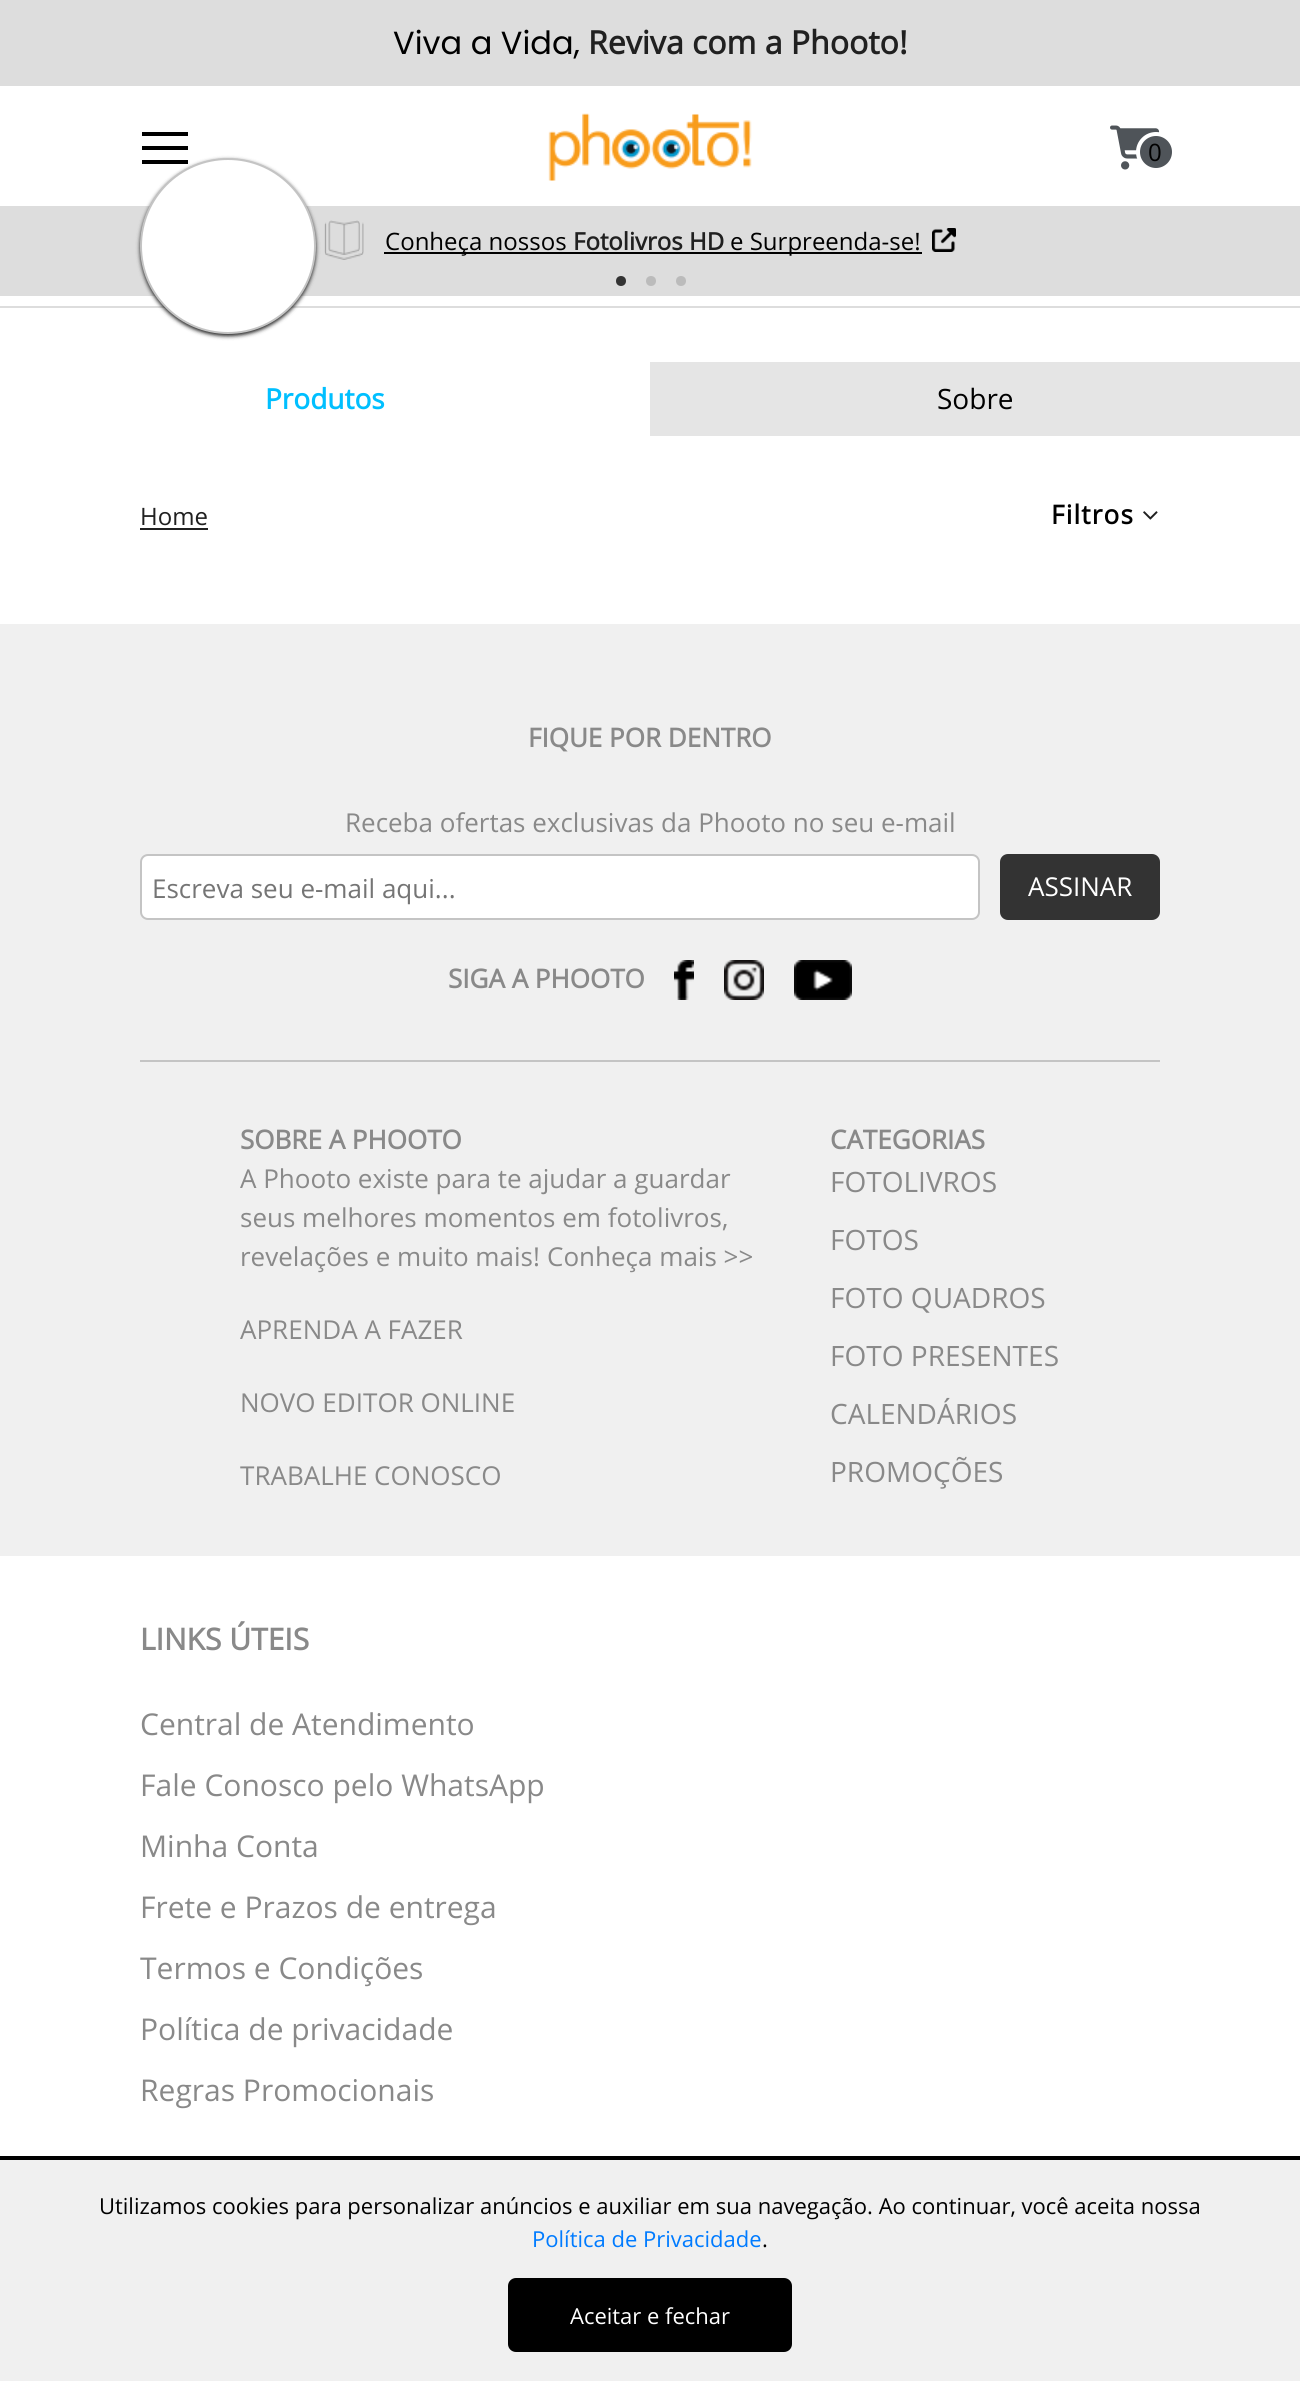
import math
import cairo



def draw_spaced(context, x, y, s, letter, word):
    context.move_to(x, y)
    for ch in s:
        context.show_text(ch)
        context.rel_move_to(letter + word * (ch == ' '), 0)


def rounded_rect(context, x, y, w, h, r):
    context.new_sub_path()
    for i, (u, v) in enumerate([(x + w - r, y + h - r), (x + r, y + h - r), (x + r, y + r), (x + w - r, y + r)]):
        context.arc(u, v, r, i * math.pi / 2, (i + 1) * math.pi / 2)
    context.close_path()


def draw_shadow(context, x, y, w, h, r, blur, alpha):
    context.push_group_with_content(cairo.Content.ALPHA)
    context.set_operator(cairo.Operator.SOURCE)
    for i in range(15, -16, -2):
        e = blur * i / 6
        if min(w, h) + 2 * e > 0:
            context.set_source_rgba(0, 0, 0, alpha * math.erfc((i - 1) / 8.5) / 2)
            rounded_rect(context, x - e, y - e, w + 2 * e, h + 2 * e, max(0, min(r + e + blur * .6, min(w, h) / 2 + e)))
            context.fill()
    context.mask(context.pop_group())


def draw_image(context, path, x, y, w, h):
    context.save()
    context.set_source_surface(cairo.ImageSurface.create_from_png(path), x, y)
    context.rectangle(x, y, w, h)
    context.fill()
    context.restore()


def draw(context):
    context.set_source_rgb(1, 1, 1)
    context.paint()
    context.set_source_rgb(221 / 255, 221 / 255, 221 / 255)
    context.rectangle(0, 306, 1300, 2)
    context.fill()
    context.set_source_rgb(0, 0, 0)
    context.rectangle(142, 160, 46, 4)
    context.fill()
    context.set_source_rgb(221 / 255, 221 / 255, 221 / 255)
    context.rectangle(0, 206, 1300, 90)
    context.fill()
    context.set_source_rgb(32 / 255, 32 / 255, 32 / 255)
    draw_shadow(context, 140, 160, 176, 176, 88, 2, 1)
    context.set_source_rgb(1, 1, 1)
    context.arc(228, 246, 87, 0, 2 * math.pi)
    context.fill_preserve()
    context.set_source_rgb(196 / 255, 196 / 255, 196 / 255)
    context.stroke()
    context.set_source_rgb(221 / 255, 221 / 255, 221 / 255)
    context.rectangle(0, 0, 1300, 86)
    context.fill()
    context.set_source_rgb(0, 0, 0)
    context.rectangle(142, 132, 46, 4)
    context.fill()
    context.rectangle(142, 146, 46, 4)
    context.fill()
    draw_image(context, "images/1.png", 548, 113, 204, 68)
    draw_image(context, "images/2.png", 1110, 125, 50, 45)
    context.set_source_rgb(79 / 255, 84 / 255, 89 / 255)
    context.arc(1156, 152, 18, 0, 2 * math.pi)
    context.fill_preserve()
    context.set_source_rgb(1, 1, 1)
    context.set_line_width(4)
    context.stroke()
    draw_image(context, "images/3.png", 324, 220, 40, 40)
    context.set_source_rgb(0, 0, 0)
    context.rectangle(384, 252, 538, 2)
    context.fill()
    draw_image(context, "images/4.png", 932, 228, 24, 24)
    context.set_source_rgb(51 / 255, 51 / 255, 51 / 255)
    context.arc(621, 281, 5, 0, 2 * math.pi)
    context.fill()
    context.set_source_rgb(187 / 255, 187 / 255, 187 / 255)
    context.arc(651, 281, 5, 0, 2 * math.pi)
    context.fill()
    context.arc(681, 281, 5, 0, 2 * math.pi)
    context.fill()
    context.set_source_rgb(229 / 255, 229 / 255, 229 / 255)
    context.rectangle(650, 362, 650, 74)
    context.fill()
    context.set_source_rgb(32 / 255, 32 / 255, 32 / 255)
    context.rectangle(140, 528, 68, 2)
    context.fill()
    draw_image(context, "images/5.png", 1143, 511, 15, 9)
    context.set_source_rgb(240 / 255, 240 / 255, 240 / 255)
    context.rectangle(0, 624, 1300, 932)
    context.fill()
    context.set_source_rgb(196 / 255, 196 / 255, 196 / 255)
    context.rectangle(140, 1060, 1020, 2)
    context.fill()
    context.set_source_rgb(1, 1, 1)
    rounded_rect(context, 141, 855, 838, 64, 7)
    context.fill_preserve()
    context.set_source_rgb(196 / 255, 196 / 255, 196 / 255)
    context.set_line_width(2)
    context.stroke()
    context.set_source_rgb(51 / 255, 51 / 255, 51 / 255)
    rounded_rect(context, 1001, 855, 158, 64, 7)
    context.fill_preserve()
    context.stroke()
    draw_image(context, "images/6.png", 674, 960, 20, 40)
    draw_image(context, "images/7.png", 724, 960, 40, 40)
    draw_image(context, "images/8.png", 794, 960, 58, 40)
    context.set_source_rgb(240 / 255, 240 / 255, 240 / 255)
    context.rectangle(0, 2160, 1300, 221)
    context.fill()
    context.set_source_rgb(0, 0, 0)
    context.rectangle(0, 2156, 1300, 4)
    context.fill()
    rounded_rect(context, 509, 2279, 282, 72, 7)
    context.fill_preserve()
    context.stroke()
    context.select_font_face("Poppins")
    context.set_font_size(32)
    context.move_to(393, 54)
    context.show_text("Viva a Vida,")
    context.select_font_face("Open Sans", cairo.FontSlant.NORMAL, cairo.FontWeight.BOLD)
    context.set_source_rgb(32 / 255, 32 / 255, 32 / 255)
    context.move_to(588, 54)
    context.show_text("Reviva com a Phooto!")
    context.select_font_face("Open Sans")
    context.set_font_size(24)
    context.set_source_rgb(0, 0, 0)
    context.move_to(1148, 161)
    context.show_text("0")
    context.move_to(385, 250)
    context.show_text("Conheça nossos")
    context.select_font_face("Open Sans", cairo.FontSlant.NORMAL, cairo.FontWeight.BOLD)
    context.set_source_rgb(32 / 255, 32 / 255, 32 / 255)
    context.move_to(573, 250)
    context.show_text("Fotolivros HD")
    context.select_font_face("Open Sans")
    context.set_source_rgb(0, 0, 0)
    context.move_to(730, 250)
    context.show_text("e Surpreenda-se!")
    context.select_font_face("Open Sans", cairo.FontSlant.NORMAL, cairo.FontWeight.BOLD)
    context.set_font_size(28)
    context.set_source_rgb(0, 191 / 255, 1)
    context.move_to(265, 409)
    context.show_text("Produtos")
    context.select_font_face("Open Sans")
    context.set_source_rgb(0, 0, 0)
    context.move_to(937, 409)
    context.show_text("Sobre")
    context.set_font_size(24)
    context.set_source_rgb(32 / 255, 32 / 255, 32 / 255)
    context.move_to(140, 525)
    context.show_text("Home")
    context.select_font_face("Open Sans", cairo.FontSlant.NORMAL, cairo.FontWeight.BOLD)
    context.set_font_size(26)
    context.set_source_rgb(0, 0, 0)
    draw_spaced(context, 1051, 524, "Filtros", 1.25, 0)
    context.set_source_rgb(137 / 255, 137 / 255, 137 / 255)
    context.move_to(528, 747)
    context.show_text("FIQUE POR DENTRO")
    context.select_font_face("Open Sans")
    context.move_to(345, 832)
    context.show_text("Receba ofertas exclusivas da Phooto no seu e-mail")
    context.set_source_rgb(117 / 255, 117 / 255, 117 / 255)
    context.move_to(152, 898)
    context.show_text("Escreva seu e-mail aqui...")
    context.set_source_rgb(1, 1, 1)
    context.move_to(1028, 896)
    context.show_text("ASSINAR")
    context.select_font_face("Open Sans", cairo.FontSlant.NORMAL, cairo.FontWeight.BOLD)
    context.set_source_rgb(137 / 255, 137 / 255, 137 / 255)
    context.move_to(448, 988)
    context.show_text("SIGA A PHOOTO")
    context.move_to(240, 1149)
    context.show_text("SOBRE A PHOOTO")
    context.select_font_face("Open Sans")
    context.move_to(240, 1188)
    context.show_text("A Phooto existe para te ajudar a guardar")
    context.move_to(240, 1227)
    context.show_text("seus melhores momentos em fotolivros,")
    context.move_to(240, 1266)
    context.show_text("revelações e muito mais!")
    context.move_to(547, 1266)
    context.show_text("Conheça mais >>")
    context.move_to(240, 1339)
    context.show_text("APRENDA A FAZER")
    context.move_to(240, 1412)
    context.show_text("NOVO EDITOR ONLINE")
    context.move_to(240, 1485)
    context.show_text("TRABALHE CONOSCO")
    context.select_font_face("Open Sans", cairo.FontSlant.NORMAL, cairo.FontWeight.BOLD)
    context.move_to(830, 1149)
    context.show_text("CATEGORIAS")
    context.select_font_face("Open Sans")
    context.set_font_size(28)
    context.move_to(830, 1192)
    context.show_text("FOTOLIVROS")
    context.move_to(830, 1250)
    context.show_text("FOTOS")
    context.move_to(830, 1308)
    context.show_text("FOTO QUADROS")
    context.move_to(830, 1366)
    context.show_text("FOTO PRESENTES")
    context.move_to(830, 1424)
    context.show_text("CALENDÁRIOS")
    context.move_to(830, 1482)
    context.show_text("PROMOÇÕES")
    context.select_font_face("Open Sans", cairo.FontSlant.NORMAL, cairo.FontWeight.BOLD)
    context.set_font_size(30)
    context.move_to(140, 1650)
    context.show_text("LINKS ÚTEIS")
    context.select_font_face("Open Sans")
    context.move_to(140, 1735)
    context.show_text("Central de Atendimento")
    context.move_to(140, 1796)
    context.show_text("Fale Conosco pelo WhatsApp")
    context.move_to(140, 1857)
    context.show_text("Minha Conta")
    context.move_to(140, 1918)
    context.show_text("Frete e Prazos de entrega")
    context.move_to(140, 1979)
    context.show_text("Termos e Condições")
    context.move_to(140, 2040)
    context.show_text("Política de privacidade")
    context.move_to(140, 2101)
    context.show_text("Regras Promocionais")
    context.set_font_size(22)
    context.set_source_rgb(0, 0, 0)
    context.move_to(99, 2214)
    context.show_text("Utilizamos cookies para personalizar anúncios e auxiliar em sua navegação. Ao continuar, você aceita nossa")
    context.set_source_rgb(0, 123 / 255, 1)
    context.move_to(532, 2247)
    context.show_text("Política de Privacidade")
    context.set_source_rgb(0, 0, 0)
    context.move_to(762, 2247)
    context.show_text(".")
    context.set_source_rgb(1, 1, 1)
    context.move_to(570, 2324)
    context.show_text("Aceitar e fechar")


surface = cairo.ImageSurface(cairo.Format.RGB24, 1300, 2381)
context = cairo.Context(surface)
options = cairo.FontOptions()
options.set_hint_metrics(cairo.HintMetrics.OFF)
options.set_hint_style(cairo.HintStyle.NONE)
context.set_font_options(options)
context.set_miter_limit(4)
draw(context)
surface.write_to_png("out.png")
